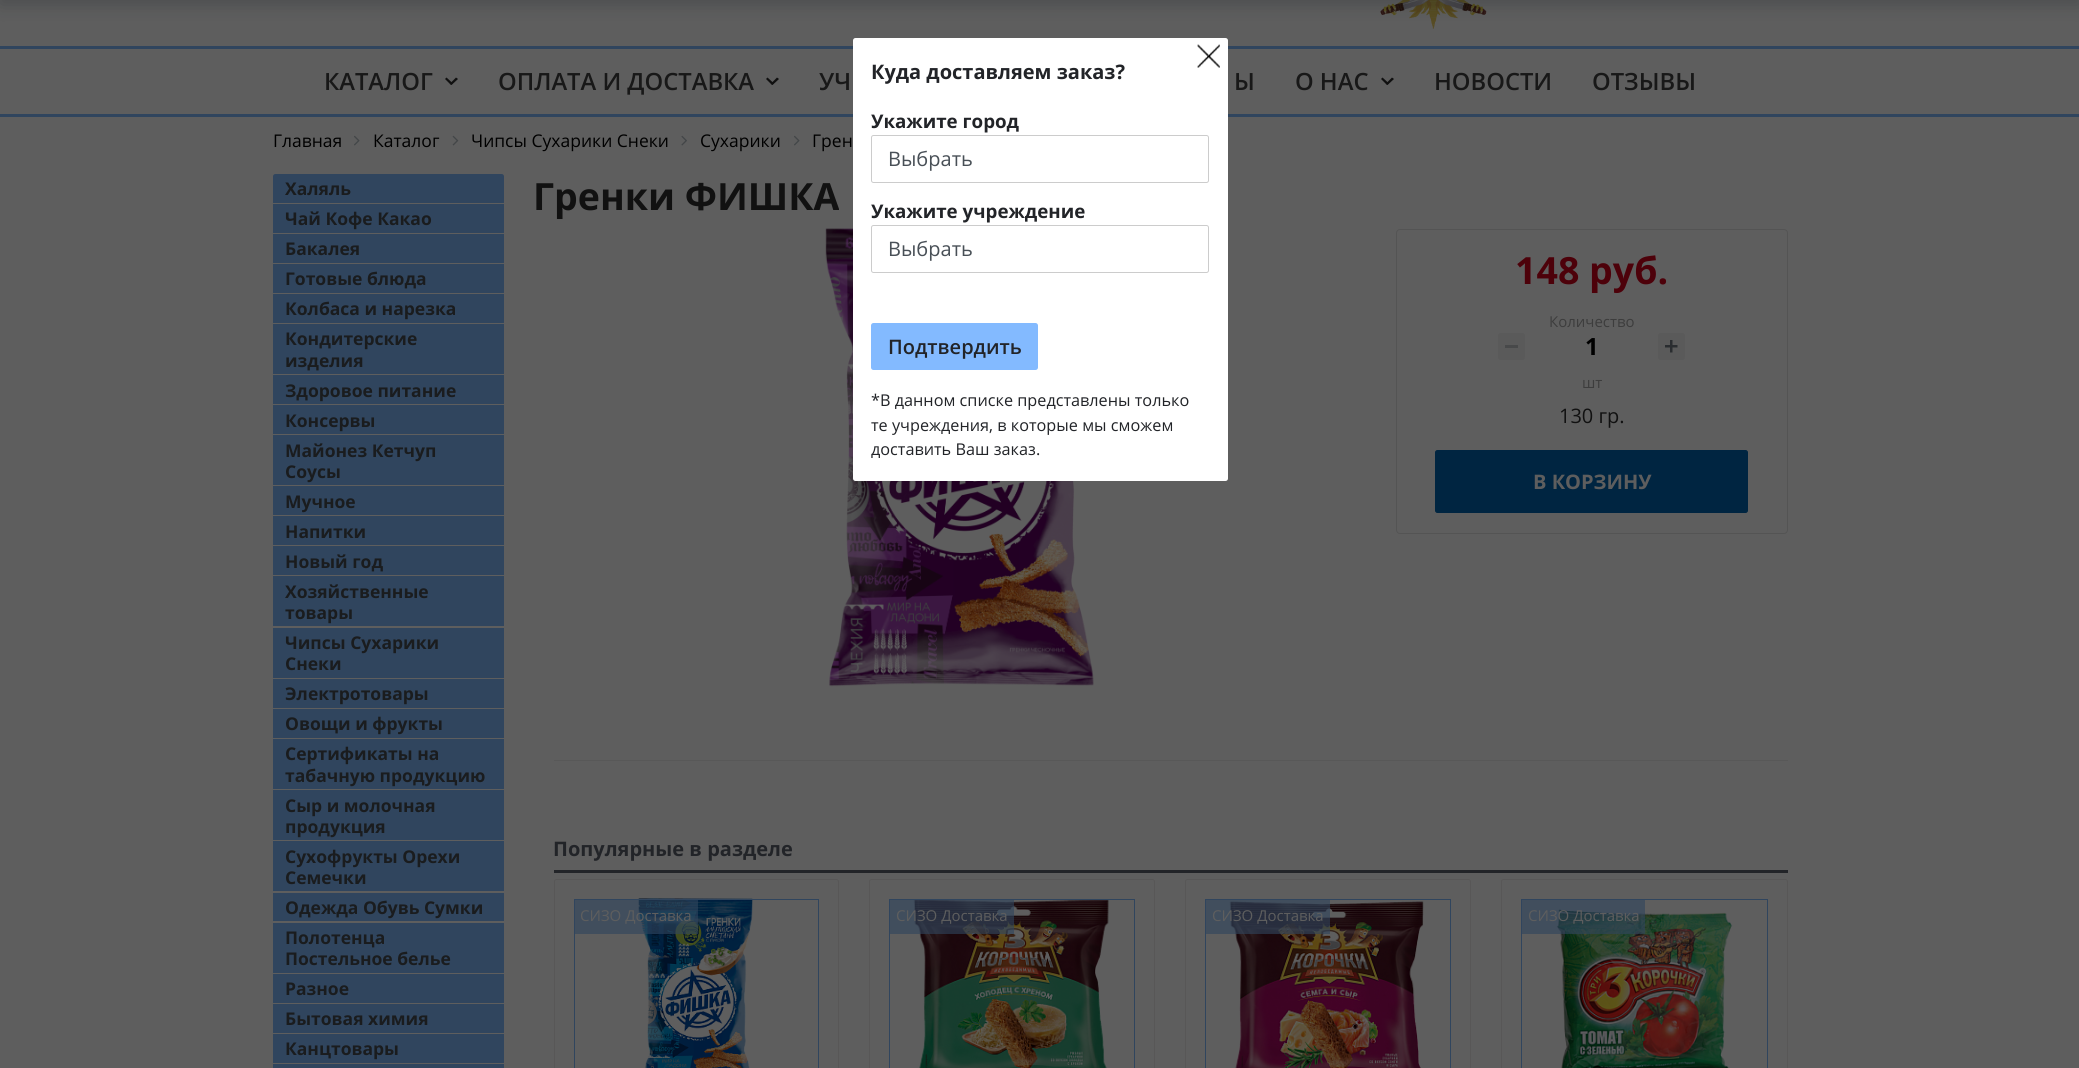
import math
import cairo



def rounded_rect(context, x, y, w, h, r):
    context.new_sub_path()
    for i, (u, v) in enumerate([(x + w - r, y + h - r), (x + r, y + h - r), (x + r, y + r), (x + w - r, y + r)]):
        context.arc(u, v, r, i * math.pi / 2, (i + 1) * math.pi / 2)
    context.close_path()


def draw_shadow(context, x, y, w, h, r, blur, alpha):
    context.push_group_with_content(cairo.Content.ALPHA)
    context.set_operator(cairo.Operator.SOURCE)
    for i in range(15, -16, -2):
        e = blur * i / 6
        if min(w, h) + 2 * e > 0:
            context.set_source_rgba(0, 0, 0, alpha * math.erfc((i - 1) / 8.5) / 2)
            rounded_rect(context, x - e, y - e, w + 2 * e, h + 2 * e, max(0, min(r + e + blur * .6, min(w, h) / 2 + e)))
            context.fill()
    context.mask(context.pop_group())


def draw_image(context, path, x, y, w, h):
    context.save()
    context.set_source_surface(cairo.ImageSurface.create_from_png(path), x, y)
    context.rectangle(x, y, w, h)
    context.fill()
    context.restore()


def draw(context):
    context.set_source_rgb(94 / 255, 94 / 255, 94 / 255)
    context.paint()
    context.set_source_rgb(48 / 255, 69 / 255, 94 / 255)
    context.rectangle(0, 46, 2079, 3)
    context.fill()
    context.rectangle(0, 114, 2079, 3)
    context.fill()
    draw_image(context, "images/6.png", 825, 228, 269, 459)
    context.set_source_rgb(1, 1, 1)
    rounded_rect(context, 853, 38, 375, 443, 2.5)
    context.fill()
    draw_image(context, "images/1.png", 1197, 44, 23, 24)
    rounded_rect(context, 871.5, 135.5, 337, 47, 2)
    context.set_source_rgb(204 / 255, 204 / 255, 204 / 255)
    context.set_line_width(1)
    context.stroke()
    rounded_rect(context, 871.5, 225.5, 337, 47, 2)
    context.stroke()
    context.set_source_rgb(131 / 255, 186 / 255, 1)
    rounded_rect(context, 871, 323, 167, 47, 2.5)
    context.fill()
    draw_image(context, "images/2.png", 1380, 0, 107, 29)
    context.set_source_rgb(16 / 255, 16 / 255, 16 / 255)
    context.new_path()
    context.move_to(450, 83.5)
    context.line_to(456, 77.5)
    context.line_to(458, 79)
    context.line_to(451.5, 85)
    context.close_path()
    context.fill()
    context.new_path()
    context.move_to(446.5, 77.5)
    context.line_to(453, 83.5)
    context.line_to(451, 85)
    context.line_to(445, 79)
    context.close_path()
    context.fill()
    context.new_path()
    context.move_to(771, 83.5)
    context.line_to(777, 77.5)
    context.line_to(779, 79)
    context.line_to(772.5, 85)
    context.close_path()
    context.fill()
    context.new_path()
    context.move_to(767.5, 77.5)
    context.line_to(774, 83.5)
    context.line_to(772, 85)
    context.line_to(766, 79)
    context.close_path()
    context.fill()
    context.new_path()
    context.move_to(1386, 83.5)
    context.line_to(1392, 77.5)
    context.line_to(1394, 79)
    context.line_to(1387.5, 85)
    context.close_path()
    context.fill()
    context.new_path()
    context.move_to(1382.5, 77.5)
    context.line_to(1389, 83.5)
    context.line_to(1387, 85)
    context.line_to(1381, 79)
    context.close_path()
    context.fill()
    draw_image(context, "images/3.png", 354, 135, 6, 11)
    draw_image(context, "images/4.png", 452, 135, 7, 11)
    draw_image(context, "images/5.png", 681, 135, 6, 11)
    draw_image(context, "images/3.png", 794, 135, 6, 11)
    context.set_source_rgb(48 / 255, 69 / 255, 94 / 255)
    context.new_path()
    context.move_to(275.5, 174)
    context.line_to(501.5, 174)
    context.curve_to(503, 174, 504, 175, 504, 176.5)
    context.line_to(504, 203)
    context.line_to(273, 203)
    context.line_to(273, 176.5)
    context.curve_to(273, 175, 274, 174, 275.5, 174)
    context.close_path()
    context.fill()
    context.rectangle(273, 204, 231, 29)
    context.fill()
    context.rectangle(273, 234, 231, 29)
    context.fill()
    context.rectangle(273, 264, 231, 29)
    context.fill()
    context.rectangle(273, 294, 231, 29)
    context.fill()
    context.rectangle(273, 324, 231, 50)
    context.fill()
    context.rectangle(273, 375, 231, 29)
    context.fill()
    context.rectangle(273, 405, 231, 29)
    context.fill()
    context.rectangle(273, 435, 231, 50)
    context.fill()
    context.rectangle(273, 486, 231, 29)
    context.fill()
    context.rectangle(273, 516, 231, 29)
    context.fill()
    context.rectangle(273, 546, 231, 29)
    context.fill()
    context.rectangle(273, 576, 231, 50)
    context.fill()
    context.rectangle(273, 628, 231, 50)
    context.fill()
    context.rectangle(273, 679, 231, 29)
    context.fill()
    context.rectangle(273, 709, 231, 29)
    context.fill()
    context.rectangle(273, 739, 231, 50)
    context.fill()
    context.rectangle(273, 790, 231, 50)
    context.fill()
    context.rectangle(273, 841, 231, 50)
    context.fill()
    context.rectangle(273, 893, 231, 28)
    context.fill()
    context.rectangle(273, 923, 231, 50)
    context.fill()
    context.rectangle(273, 974, 231, 29)
    context.fill()
    context.rectangle(273, 1004, 231, 29)
    context.fill()
    context.rectangle(273, 1034, 231, 29)
    context.fill()
    context.rectangle(273, 1064, 231, 4)
    context.fill()
    context.set_source_rgb(12 / 255, 20 / 255, 27 / 255)
    draw_shadow(context, 0, -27, 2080, 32, 0, 9, 0.23)
    rounded_rect(context, 1396.5, 229.5, 391, 304, 3.5)
    context.set_source_rgb(84 / 255, 84 / 255, 84 / 255)
    context.stroke()
    context.set_source_rgb(90 / 255, 90 / 255, 90 / 255)
    rounded_rect(context, 1498, 333, 27, 27, 2.5)
    context.fill()
    context.set_source_rgb(72 / 255, 73 / 255, 74 / 255)
    context.rectangle(1505, 345, 13, 3)
    context.fill()
    context.set_source_rgb(90 / 255, 90 / 255, 90 / 255)
    rounded_rect(context, 1658, 333, 27, 27, 2.5)
    context.fill()
    draw_image(context, "images/7.png", 1665, 340, 13, 13)
    context.set_source_rgb(0, 37 / 255, 65 / 255)
    rounded_rect(context, 1435.5, 450.5, 312, 62, 2)
    context.fill_preserve()
    context.stroke()
    context.set_source_rgb(88 / 255, 88 / 255, 88 / 255)
    context.rectangle(554, 760, 1234, 1)
    context.fill()
    context.set_source_rgb(34 / 255, 36 / 255, 40 / 255)
    context.rectangle(554, 870, 1234, 3)
    context.fill()
    rounded_rect(context, 554.5, 879.5, 284, 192, 2)
    context.set_source_rgb(88 / 255, 87 / 255, 87 / 255)
    context.stroke()
    draw_image(context, "images/8.png", 638, 898, 115, 170)
    context.rectangle(574.5, 899.5, 244, 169)
    context.set_source_rgb(48 / 255, 69 / 255, 94 / 255)
    context.stroke()
    context.set_source_rgba(48 / 255, 69 / 255, 94 / 255, 0.61)
    context.rectangle(575, 900, 123, 34)
    context.fill()
    rounded_rect(context, 869.5, 879.5, 285, 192, 2)
    context.set_source_rgb(88 / 255, 87 / 255, 87 / 255)
    context.stroke()
    draw_image(context, "images/9.png", 913, 900, 196, 168)
    context.rectangle(889.5, 899.5, 245, 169)
    context.set_source_rgb(48 / 255, 69 / 255, 94 / 255)
    context.stroke()
    context.set_source_rgba(48 / 255, 69 / 255, 94 / 255, 0.61)
    context.rectangle(890, 900, 124, 34)
    context.fill()
    rounded_rect(context, 1185.5, 879.5, 285, 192, 2)
    context.set_source_rgb(88 / 255, 87 / 255, 87 / 255)
    context.stroke()
    draw_image(context, "images/10.png", 1229, 901, 195, 167)
    context.rectangle(1205.5, 899.5, 245, 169)
    context.set_source_rgb(48 / 255, 69 / 255, 94 / 255)
    context.stroke()
    context.set_source_rgba(48 / 255, 69 / 255, 94 / 255, 0.61)
    context.rectangle(1206, 900, 124, 34)
    context.fill()
    rounded_rect(context, 1501.5, 879.5, 286, 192, 2)
    context.set_source_rgb(88 / 255, 87 / 255, 87 / 255)
    context.stroke()
    draw_image(context, "images/11.png", 1556, 909, 177, 159)
    context.rectangle(1521.5, 899.5, 246, 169)
    context.set_source_rgb(48 / 255, 69 / 255, 94 / 255)
    context.stroke()
    context.set_source_rgba(48 / 255, 69 / 255, 94 / 255, 0.61)
    context.rectangle(1522, 900, 123, 34)
    context.fill()
    context.select_font_face("Open Sans", cairo.FontSlant.NORMAL, cairo.FontWeight.BOLD)
    context.set_font_size(20)
    context.set_source_rgb(34 / 255, 36 / 255, 40 / 255)
    context.move_to(871, 79)
    context.show_text("Куда доставляем заказ?")
    context.set_font_size(18.75)
    context.move_to(871, 128)
    context.show_text("Укажите город")
    context.select_font_face("Open Sans")
    context.set_font_size(20)
    context.set_source_rgb(73 / 255, 80 / 255, 87 / 255)
    context.move_to(888, 166)
    context.show_text("Выбрать")
    context.select_font_face("Open Sans", cairo.FontSlant.NORMAL, cairo.FontWeight.BOLD)
    context.set_font_size(18.75)
    context.set_source_rgb(34 / 255, 36 / 255, 40 / 255)
    context.move_to(871, 218)
    context.show_text("Укажите учреждение")
    context.select_font_face("Open Sans")
    context.set_font_size(20)
    context.set_source_rgb(73 / 255, 80 / 255, 87 / 255)
    context.move_to(888, 256)
    context.show_text("Выбрать")
    context.select_font_face("Open Sans SemiBold")
    context.set_source_rgb(34 / 255, 36 / 255, 40 / 255)
    context.move_to(888, 354)
    context.show_text("Подтвердить")
    context.select_font_face("Open Sans")
    context.set_font_size(16.25)
    context.move_to(871, 406)
    context.show_text("*В данном списке представлены только")
    context.move_to(871, 431)
    context.show_text("те учреждения, в которые мы сможем")
    context.move_to(871, 455)
    context.show_text("доставить Ваш заказ.")
    context.select_font_face("Open Sans SemiBold")
    context.set_font_size(23.75)
    context.set_source_rgb(24 / 255, 24 / 255, 24 / 255)
    context.move_to(324, 90)
    context.show_text("КАТАЛОГ")
    context.move_to(498, 90)
    context.show_text("ОПЛАТА И ДОСТАВКА")
    context.move_to(819, 90)
    context.show_text("УЧ")
    context.move_to(1234, 90)
    context.show_text("Ы")
    context.move_to(1295, 90)
    context.show_text("О НАС")
    context.move_to(1434, 90)
    context.show_text("НОВОСТИ")
    context.move_to(1592, 90)
    context.show_text("ОТЗЫВЫ")
    context.select_font_face("Open Sans")
    context.set_font_size(17.5)
    context.set_source_rgb(0, 0, 0)
    context.move_to(273, 147)
    context.show_text("Главная")
    context.move_to(373, 147)
    context.show_text("Каталог")
    context.move_to(471, 147)
    context.show_text("Чипсы Сухарики Снеки")
    context.move_to(700, 147)
    context.show_text("Сухарики")
    context.move_to(812, 147)
    context.show_text("Грен")
    context.select_font_face("Open Sans", cairo.FontSlant.NORMAL, cairo.FontWeight.BOLD)
    context.set_source_rgb(26 / 255, 28 / 255, 30 / 255)
    context.move_to(285, 195)
    context.show_text("Халяль")
    context.move_to(285, 225)
    context.show_text("Чай Кофе Какао")
    context.move_to(285, 255)
    context.show_text("Бакалея")
    context.move_to(285, 285)
    context.show_text("Готовые блюда")
    context.move_to(285, 315)
    context.show_text("Колбаса и нарезка")
    context.move_to(285, 345)
    context.show_text("Кондитерские")
    context.move_to(285, 367)
    context.show_text("изделия")
    context.move_to(285, 397)
    context.show_text("Здоровое питание")
    context.move_to(285, 427)
    context.show_text("Консервы")
    context.move_to(285, 457)
    context.show_text("Майонез Кетчуп")
    context.move_to(285, 478)
    context.show_text("Соусы")
    context.move_to(285, 508)
    context.show_text("Мучное")
    context.move_to(285, 538)
    context.show_text("Напитки")
    context.move_to(285, 568)
    context.show_text("Новый год")
    context.move_to(285, 598)
    context.show_text("Хозяйственные")
    context.move_to(285, 619)
    context.show_text("товары")
    context.move_to(285, 649)
    context.show_text("Чипсы Сухарики")
    context.move_to(285, 670)
    context.show_text("Снеки")
    context.move_to(285, 700)
    context.show_text("Электротовары")
    context.move_to(285, 730)
    context.show_text("Овощи и фрукты")
    context.move_to(285, 760)
    context.show_text("Сертификаты на")
    context.move_to(285, 782)
    context.show_text("табачную продукцию")
    context.move_to(285, 812)
    context.show_text("Сыр и молочная")
    context.move_to(285, 833)
    context.show_text("продукция")
    context.move_to(285, 863)
    context.show_text("Сухофрукты Орехи")
    context.move_to(285, 884)
    context.show_text("Семечки")
    context.move_to(285, 914)
    context.show_text("Одежда Обувь Сумки")
    context.move_to(285, 944)
    context.show_text("Полотенца")
    context.move_to(285, 965)
    context.show_text("Постельное белье")
    context.move_to(285, 995)
    context.show_text("Разное")
    context.move_to(285, 1025)
    context.show_text("Бытовая химия")
    context.move_to(285, 1055)
    context.show_text("Канцтовары")
    context.set_font_size(37.5)
    context.set_source_rgb(17 / 255, 17 / 255, 17 / 255)
    context.move_to(533, 210)
    context.show_text("Гренки ФИШКА")
    context.set_source_rgb(77 / 255, 1 / 255, 10 / 255)
    context.move_to(1515, 284)
    context.show_text("148 руб.")
    context.select_font_face("Open Sans")
    context.set_font_size(15)
    context.set_source_rgb(61 / 255, 61 / 255, 61 / 255)
    context.move_to(1549, 327)
    context.show_text("Количество")
    context.select_font_face("Open Sans", cairo.FontSlant.NORMAL, cairo.FontWeight.BOLD)
    context.set_font_size(23.75)
    context.set_source_rgb(0, 0, 0)
    context.move_to(1585, 355)
    context.show_text("1")
    context.select_font_face("Open Sans")
    context.set_font_size(15)
    context.set_source_rgb(61 / 255, 61 / 255, 61 / 255)
    context.move_to(1582, 388)
    context.show_text("шт")
    context.set_font_size(20)
    context.set_source_rgb(17 / 255, 17 / 255, 17 / 255)
    context.move_to(1559, 423)
    context.show_text("130 гр.")
    context.select_font_face("Open Sans", cairo.FontSlant.NORMAL, cairo.FontWeight.BOLD)
    context.set_source_rgb(94 / 255, 94 / 255, 94 / 255)
    context.move_to(1533, 489)
    context.show_text("В КОРЗИНУ")
    context.set_source_rgb(34 / 255, 36 / 255, 40 / 255)
    context.move_to(553, 856)
    context.show_text("Популярные в разделе")
    context.select_font_face("Open Sans")
    context.set_font_size(15)
    context.set_source_rgb(94 / 255, 94 / 255, 94 / 255)
    context.move_to(580, 921)
    context.show_text("СИЗО Доставка")
    context.move_to(896, 921)
    context.show_text("СИЗО Доставка")
    context.move_to(1212, 921)
    context.show_text("СИЗО Доставка")
    context.move_to(1528, 921)
    context.show_text("СИЗО Доставка")


surface = cairo.ImageSurface(cairo.Format.RGB24, 2079, 1068)
context = cairo.Context(surface)
options = cairo.FontOptions()
options.set_hint_metrics(cairo.HintMetrics.OFF)
options.set_hint_style(cairo.HintStyle.NONE)
context.set_font_options(options)
context.set_miter_limit(4)
draw(context)
surface.write_to_png("out.png")
